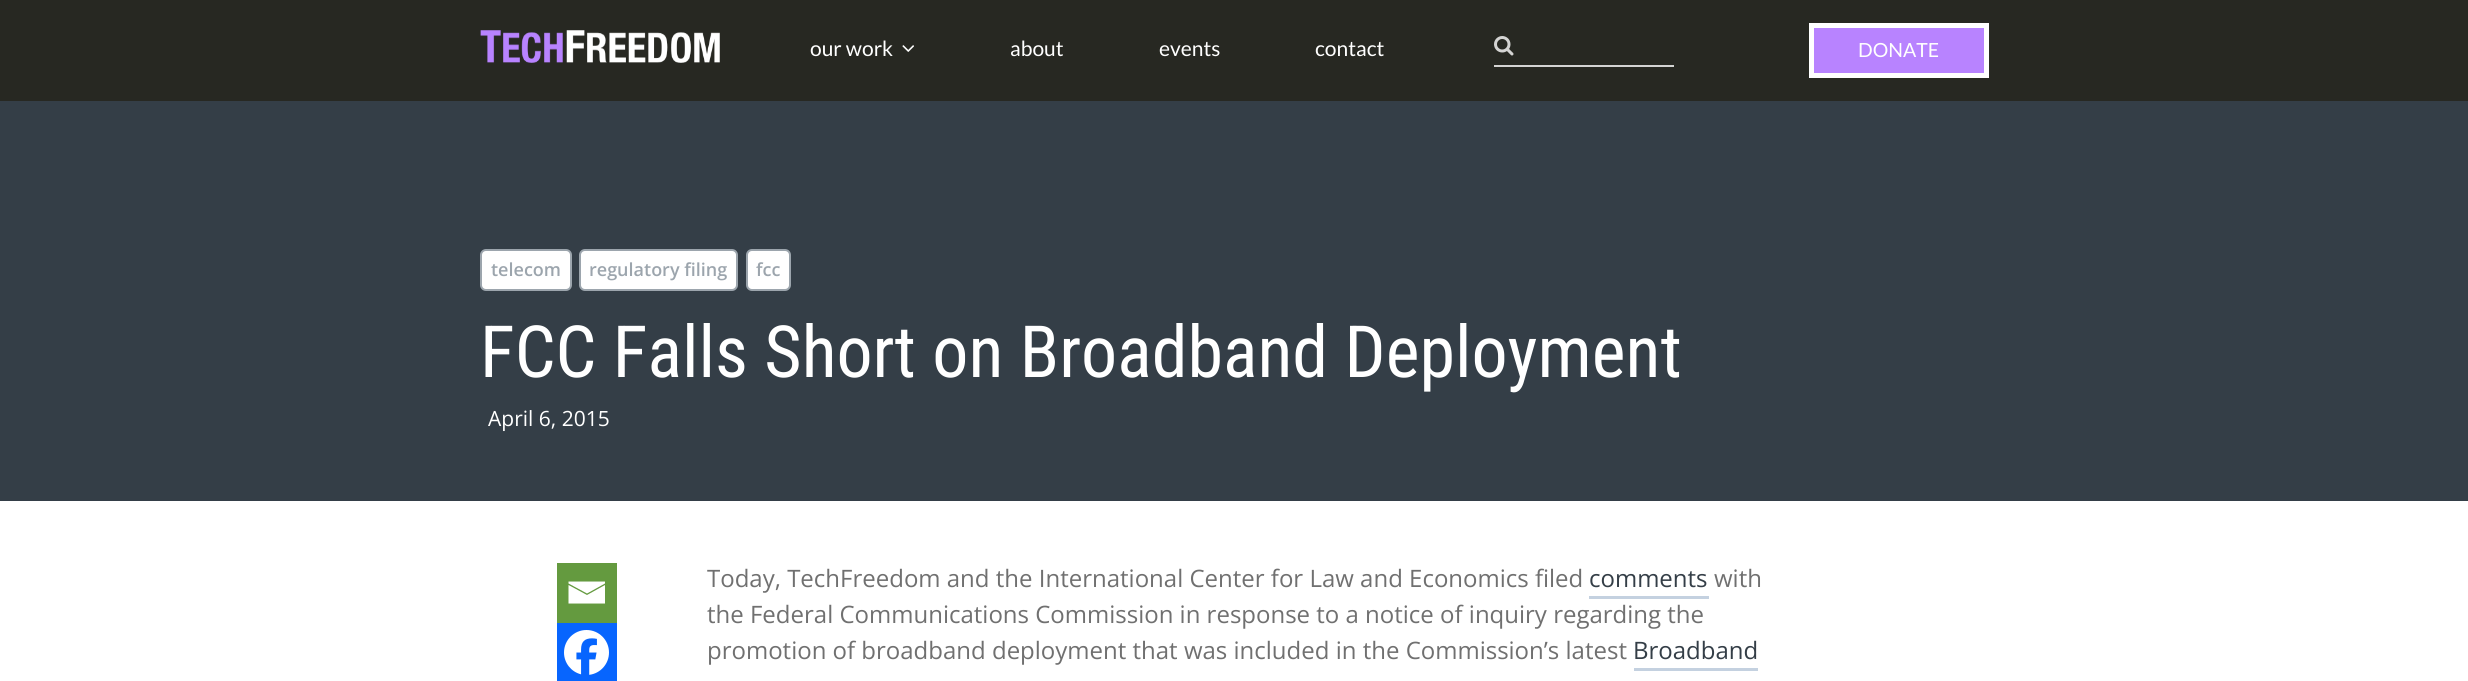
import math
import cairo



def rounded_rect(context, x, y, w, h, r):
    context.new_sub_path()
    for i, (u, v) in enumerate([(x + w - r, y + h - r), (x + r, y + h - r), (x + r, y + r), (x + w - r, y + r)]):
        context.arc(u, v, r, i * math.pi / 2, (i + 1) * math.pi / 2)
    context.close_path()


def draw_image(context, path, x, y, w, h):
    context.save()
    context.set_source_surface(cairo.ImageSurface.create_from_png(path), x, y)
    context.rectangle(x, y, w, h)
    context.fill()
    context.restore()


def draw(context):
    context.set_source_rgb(1, 1, 1)
    context.paint()
    context.set_source_rgb(39 / 255, 40 / 255, 34 / 255)
    context.rectangle(0, 0, 2468, 101)
    context.fill()
    draw_image(context, "images/1.png", 480, 30, 240, 33)
    draw_image(context, "images/2.png", 902, 45, 12, 7)
    context.set_source_rgb(212 / 255, 212 / 255, 211 / 255)
    context.rectangle(1494, 65, 180, 2)
    context.fill()
    draw_image(context, "images/3.png", 1494, 36, 20, 20)
    context.set_source_rgb(184 / 255, 131 / 255, 1)
    context.rectangle(1811.5, 25.5, 175, 50)
    context.fill_preserve()
    context.set_source_rgb(1, 1, 1)
    context.set_line_width(5)
    context.stroke()
    context.set_source_rgb(52 / 255, 62 / 255, 71 / 255)
    context.rectangle(0, 101, 2468, 400)
    context.fill()
    context.set_source_rgb(1, 1, 1)
    rounded_rect(context, 481, 250, 90, 40, 5)
    context.fill_preserve()
    context.set_source_rgb(156 / 255, 165 / 255, 173 / 255)
    context.set_line_width(2)
    context.stroke()
    context.set_source_rgb(1, 1, 1)
    rounded_rect(context, 580, 250, 157, 40, 5)
    context.fill_preserve()
    context.set_source_rgb(156 / 255, 165 / 255, 173 / 255)
    context.stroke()
    context.set_source_rgb(1, 1, 1)
    rounded_rect(context, 747, 250, 43, 40, 5)
    context.fill_preserve()
    context.set_source_rgb(156 / 255, 165 / 255, 173 / 255)
    context.stroke()
    context.set_source_rgb(100 / 255, 154 / 255, 63 / 255)
    context.rectangle(557, 563, 60, 60)
    context.fill()
    context.set_source_rgb(1, 1, 1)
    context.new_path()
    context.move_to(567, 581.5)
    context.line_to(605, 581.5)
    context.line_to(605, 583.5)
    context.line_to(587, 593.5)
    context.line_to(568.5, 583.5)
    context.line_to(568.5, 581.5)
    context.move_to(568.5, 585)
    context.line_to(587, 595)
    context.line_to(605, 585)
    context.line_to(605, 603.5)
    context.line_to(568.5, 603.5)
    context.line_to(568.5, 585)
    context.fill()
    context.set_source_rgb(7 / 255, 101 / 255, 254 / 255)
    context.rectangle(557, 623, 60, 58)
    context.fill()
    draw_image(context, "images/4.png", 564, 630, 45, 45)
    context.set_source_rgb(196 / 255, 209 / 255, 224 / 255)
    context.rectangle(1589, 596, 120, 3)
    context.fill()
    context.rectangle(1634, 668, 124, 3)
    context.fill()
    context.select_font_face("Lato")
    context.set_font_size(21)
    context.set_source_rgb(1, 1, 1)
    context.move_to(810, 56)
    context.show_text("our work")
    context.move_to(1010, 56)
    context.show_text("about")
    context.move_to(1159, 56)
    context.show_text("events")
    context.move_to(1315, 56)
    context.show_text("contact")
    context.set_font_size(19.5)
    context.move_to(1858, 57)
    context.show_text("DONATE")
    context.select_font_face("Open Sans SemiBold")
    context.set_font_size(18)
    context.set_source_rgb(156 / 255, 165 / 255, 173 / 255)
    context.move_to(491, 276)
    context.show_text("telecom")
    context.move_to(589, 276)
    context.show_text("regulatory filing")
    context.move_to(756, 276)
    context.show_text("fcc")
    context.select_font_face("Roboto Condensed")
    context.set_font_size(72)
    context.set_source_rgb(1, 1, 1)
    context.move_to(480, 377)
    context.show_text("FCC Falls Short on Broadband Deployment")
    context.select_font_face("Open Sans")
    context.set_font_size(21)
    context.move_to(488, 426)
    context.show_text("April 6, 2015")
    context.set_font_size(24)
    context.set_source_rgb(112 / 255, 112 / 255, 112 / 255)
    context.move_to(707, 587)
    context.show_text("Today, TechFreedom and the International Center for Law and Economics filed")
    context.set_source_rgb(52 / 255, 62 / 255, 71 / 255)
    context.move_to(1589, 587)
    context.show_text("comments")
    context.set_source_rgb(112 / 255, 112 / 255, 112 / 255)
    context.move_to(1714, 587)
    context.show_text("with")
    context.move_to(707, 623)
    context.show_text("the Federal Communications Commission in response to a notice of inquiry regarding the")
    context.move_to(707, 659)
    context.show_text("promotion of broadband deployment that was included in the Commission’s latest")
    context.set_source_rgb(52 / 255, 62 / 255, 71 / 255)
    context.move_to(1633, 659)
    context.show_text("Broadband")


surface = cairo.ImageSurface(cairo.Format.RGB24, 2468, 681)
context = cairo.Context(surface)
options = cairo.FontOptions()
options.set_hint_metrics(cairo.HintMetrics.OFF)
options.set_hint_style(cairo.HintStyle.NONE)
context.set_font_options(options)
context.set_miter_limit(4)
draw(context)
surface.write_to_png("out.png")
